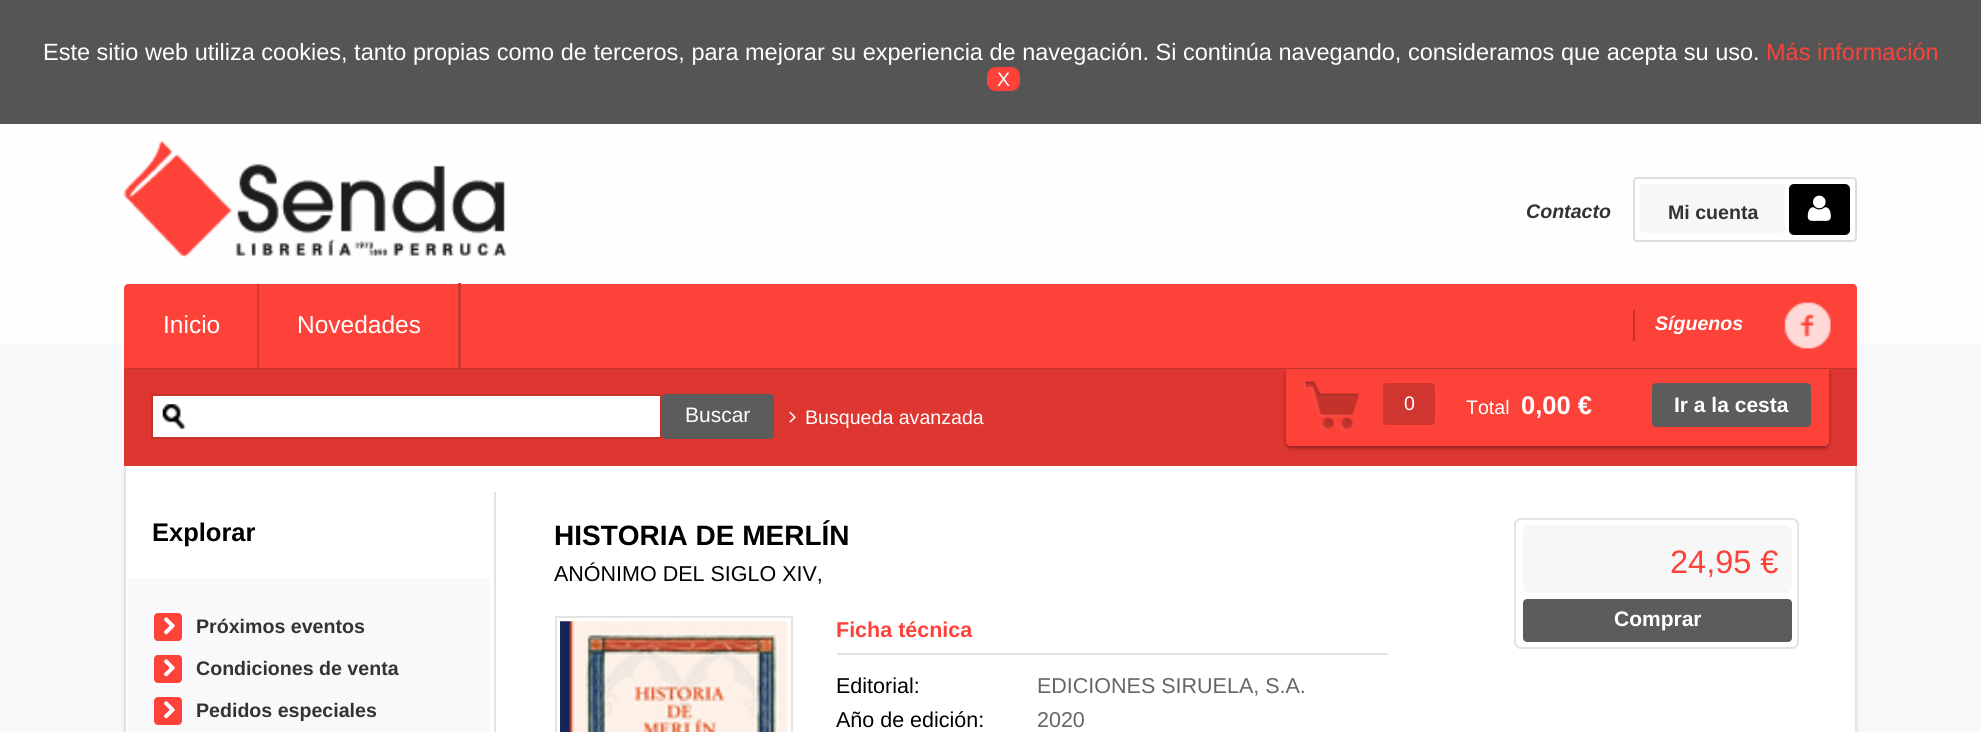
import math
import cairo



def rounded_rect(context, x, y, w, h, r):
    context.new_sub_path()
    for i, (u, v) in enumerate([(x + w - r, y + h - r), (x + r, y + h - r), (x + r, y + r), (x + w - r, y + r)]):
        context.arc(u, v, r, i * math.pi / 2, (i + 1) * math.pi / 2)
    context.close_path()


def draw_shadow(context, x, y, w, h, r, blur, alpha):
    context.push_group_with_content(cairo.Content.ALPHA)
    context.set_operator(cairo.Operator.SOURCE)
    for i in range(15, -16, -2):
        e = blur * i / 6
        if min(w, h) + 2 * e > 0:
            context.set_source_rgba(0, 0, 0, alpha * math.erfc((i - 1) / 8.5) / 2)
            rounded_rect(context, x - e, y - e, w + 2 * e, h + 2 * e, max(0, min(r + e + blur * .6, min(w, h) / 2 + e)))
            context.fill()
    context.mask(context.pop_group())


def draw_image(context, path, x, y, w, h):
    context.save()
    context.set_source_surface(cairo.ImageSurface.create_from_png(path), x, y)
    context.rectangle(x, y, w, h)
    context.fill()
    context.restore()


def draw(context):
    context.set_source_rgb(248 / 255, 249 / 255, 250 / 255)
    context.paint()
    context.set_source_rgb(254 / 255, 254 / 255, 1)
    context.rectangle(0, 124, 1981, 219)
    context.fill()
    context.set_source_rgb(85 / 255, 85 / 255, 85 / 255)
    context.rectangle(0, 0, 1981, 124)
    context.fill()
    context.set_source_rgb(252 / 255, 66 / 255, 57 / 255)
    rounded_rect(context, 987, 67, 33, 24, 9)
    context.fill()
    draw_image(context, "images/1.png", 124, 141, 382, 117)
    rounded_rect(context, 1634, 178, 222, 63, 3)
    context.set_source_rgb(221 / 255, 221 / 255, 221 / 255)
    context.stroke()
    context.set_source_rgb(247 / 255, 247 / 255, 247 / 255)
    rounded_rect(context, 1640, 184, 145, 49, 4)
    context.fill()
    context.set_source_rgb(0, 0, 0)
    rounded_rect(context, 1789, 184, 61, 51, 5)
    context.fill()
    draw_image(context, "images/2.png", 1807, 195, 24, 26)
    context.set_source_rgb(252 / 255, 66 / 255, 57 / 255)
    context.new_path()
    context.move_to(128, 284)
    context.line_to(1853, 284)
    context.curve_to(1855, 284, 1857, 286, 1857, 288)
    context.line_to(1857, 369)
    context.line_to(124, 369)
    context.line_to(124, 288)
    context.curve_to(124, 286, 126, 284, 128, 284)
    context.close_path()
    context.fill()
    context.set_source_rgb(197 / 255, 52 / 255, 44 / 255)
    context.rectangle(124, 368, 1733, 1)
    context.fill()
    draw_image(context, "images/3.png", 257, 283, 2, 85)
    context.set_source_rgb(205 / 255, 57 / 255, 50 / 255)
    context.rectangle(458, 283, 3, 85)
    context.fill()
    context.set_source_rgb(197 / 255, 52 / 255, 44 / 255)
    context.rectangle(1633, 310, 2, 31)
    context.fill()
    draw_image(context, "images/4.png", 1784, 302, 47, 47)
    context.set_source_rgb(0, 0, 0)
    draw_shadow(context, 124, 469, 1733, 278, 4, 3.5, 0.07)
    context.set_source_rgb(222 / 255, 54 / 255, 48 / 255)
    context.rectangle(124, 369, 1733, 97)
    context.fill()
    context.set_source_rgb(1, 1, 1)
    context.rectangle(153, 396, 507, 41)
    context.fill()
    draw_image(context, "images/5.png", 162, 404, 24, 25)
    context.rectangle(152, 395, 509, 43)
    context.set_source_rgb(197 / 255, 52 / 255, 44 / 255)
    context.stroke()
    context.set_source_rgb(92 / 255, 92 / 255, 92 / 255)
    rounded_rect(context, 663, 395, 110, 43, 3)
    context.fill_preserve()
    context.stroke()
    draw_image(context, "images/6.png", 789, 411, 7, 12)
    context.set_source_rgb(0, 0, 0)
    draw_shadow(context, 1286, 371, 543, 77, 4, 2, 0.37)
    context.set_source_rgb(252 / 255, 66 / 255, 57 / 255)
    context.new_path()
    context.move_to(1286, 369)
    context.line_to(1829, 369)
    context.line_to(1829, 442)
    context.curve_to(1829, 444, 1827, 446, 1825, 446)
    context.line_to(1290, 446)
    context.curve_to(1288, 446, 1286, 444, 1286, 442)
    context.close_path()
    context.fill()
    draw_image(context, "images/7.png", 1304, 381, 56, 50)
    context.set_source_rgb(207 / 255, 54 / 255, 47 / 255)
    rounded_rect(context, 1383, 383, 52, 42, 4)
    context.fill()
    context.set_source_rgb(92 / 255, 92 / 255, 92 / 255)
    rounded_rect(context, 1653, 384, 157, 42, 3)
    context.fill_preserve()
    context.stroke()
    context.set_source_rgb(1, 1, 1)
    context.rectangle(126, 466, 1729, 266)
    context.fill()
    context.set_source_rgb(227 / 255, 227 / 255, 227 / 255)
    context.set_fill_rule(cairo.FillRule.EVEN_ODD)
    context.new_path()
    context.move_to(124, 466)
    context.line_to(1857, 466)
    context.line_to(1857, 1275)
    context.curve_to(1857, 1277, 1855, 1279, 1853, 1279)
    context.line_to(128, 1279)
    context.curve_to(126, 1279, 124, 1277, 124, 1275)
    context.close_path()
    context.move_to(126, 466)
    context.line_to(1855, 466)
    context.line_to(1855, 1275)
    context.curve_to(1855, 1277, 1854, 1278, 1853, 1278)
    context.line_to(128, 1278)
    context.curve_to(127, 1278, 126, 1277, 126, 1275)
    context.close_path()
    context.fill()
    context.rectangle(494, 492, 2, 240)
    context.fill()
    context.set_source_rgb(249 / 255, 249 / 255, 249 / 255)
    context.rectangle(128, 578, 362, 154)
    context.fill()
    context.set_source_rgb(252 / 255, 66 / 255, 57 / 255)
    rounded_rect(context, 154, 613, 28, 28, 4)
    context.fill()
    draw_image(context, "images/8.png", 164, 617, 11, 18)
    rounded_rect(context, 154, 655, 28, 28, 4)
    context.fill()
    draw_image(context, "images/8.png", 164, 659, 11, 18)
    rounded_rect(context, 154, 697, 28, 28, 4)
    context.fill()
    draw_image(context, "images/8.png", 164, 701, 11, 18)
    context.rectangle(556, 617, 236, 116)
    context.set_source_rgb(227 / 255, 227 / 255, 227 / 255)
    context.stroke()
    draw_image(context, "images/9.png", 560, 621, 228, 111)
    context.rectangle(837, 653, 551, 2)
    context.fill()
    rounded_rect(context, 1515, 519, 283, 129, 6)
    context.stroke()
    context.set_source_rgb(247 / 255, 247 / 255, 247 / 255)
    rounded_rect(context, 1523, 525, 269, 68, 7)
    context.fill()
    context.set_source_rgb(92 / 255, 92 / 255, 92 / 255)
    rounded_rect(context, 1524, 600, 267, 41, 3)
    context.fill_preserve()
    context.stroke()
    context.select_font_face("Liberation Sans")
    context.set_font_size(23.52)
    context.set_source_rgb(1, 1, 1)
    context.move_to(43, 60)
    context.show_text("Este sitio web utiliza cookies, tanto propias como de terceros, para mejorar su experiencia de navegación. Si continúa navegando, consideramos que acepta su uso.")
    context.set_source_rgb(252 / 255, 66 / 255, 57 / 255)
    context.move_to(1766, 60)
    context.show_text("Más información")
    context.set_font_size(19.6)
    context.set_source_rgb(1, 1, 1)
    context.move_to(997, 86)
    context.show_text("X")
    context.select_font_face("Liberation Sans", cairo.FontSlant.ITALIC, cairo.FontWeight.BOLD)
    context.set_source_rgb(51 / 255, 51 / 255, 51 / 255)
    context.move_to(1526, 218)
    context.show_text("Contacto")
    context.select_font_face("Liberation Sans", cairo.FontSlant.NORMAL, cairo.FontWeight.BOLD)
    context.move_to(1668, 219)
    context.show_text("Mi cuenta")
    context.select_font_face("Liberation Sans")
    context.set_font_size(24.5)
    context.set_source_rgb(1, 1, 1)
    context.move_to(163, 333)
    context.show_text("Inicio")
    context.move_to(297, 333)
    context.show_text("Novedades")
    context.select_font_face("Liberation Sans", cairo.FontSlant.ITALIC, cairo.FontWeight.BOLD)
    context.set_font_size(19.6)
    context.move_to(1655, 330)
    context.show_text("Síguenos")
    context.select_font_face("Liberation Sans")
    context.set_font_size(21)
    context.move_to(685, 422)
    context.show_text("Buscar")
    context.set_font_size(19.6)
    context.move_to(805, 424)
    context.show_text("Busqueda avanzada")
    context.move_to(1404, 410)
    context.show_text("0")
    context.move_to(1466, 414)
    context.show_text("Total")
    context.select_font_face("Liberation Sans", cairo.FontSlant.NORMAL, cairo.FontWeight.BOLD)
    context.set_font_size(25.5)
    context.move_to(1521, 414)
    context.show_text("0,00 €")
    context.set_font_size(21)
    context.move_to(1674, 412)
    context.show_text("Ir a la cesta")
    context.set_font_size(25.5)
    context.set_source_rgb(0, 0, 0)
    context.move_to(152, 541)
    context.show_text("Explorar")
    context.set_font_size(19.6)
    context.set_source_rgb(51 / 255, 51 / 255, 51 / 255)
    context.move_to(196, 633)
    context.show_text("Próximos eventos")
    context.move_to(196, 675)
    context.show_text("Condiciones de venta")
    context.move_to(196, 717)
    context.show_text("Pedidos especiales")
    context.set_font_size(28)
    context.set_source_rgb(0, 0, 0)
    context.move_to(554, 545)
    context.show_text("HISTORIA DE MERLÍN")
    context.select_font_face("Liberation Sans")
    context.set_font_size(21.5)
    context.move_to(554, 581)
    context.show_text("ANÓNIMO DEL SIGLO XIV,")
    context.select_font_face("Liberation Sans", cairo.FontSlant.NORMAL, cairo.FontWeight.BOLD)
    context.set_source_rgb(252 / 255, 66 / 255, 57 / 255)
    context.move_to(836, 637)
    context.show_text("Ficha técnica")
    context.select_font_face("Liberation Sans")
    context.set_source_rgb(0, 0, 0)
    context.move_to(836, 693)
    context.show_text("Editorial:")
    context.set_source_rgb(102 / 255, 102 / 255, 102 / 255)
    context.move_to(1037, 693)
    context.show_text("EDICIONES SIRUELA, S.A.")
    context.set_source_rgb(0, 0, 0)
    context.move_to(836, 727)
    context.show_text("Año de edición:")
    context.set_source_rgb(102 / 255, 102 / 255, 102 / 255)
    context.move_to(1037, 727)
    context.show_text("2020")
    context.set_font_size(32.5)
    context.set_source_rgb(252 / 255, 66 / 255, 57 / 255)
    context.move_to(1670, 573)
    context.show_text("24,95 €")
    context.select_font_face("Liberation Sans", cairo.FontSlant.NORMAL, cairo.FontWeight.BOLD)
    context.set_font_size(21)
    context.set_source_rgb(1, 1, 1)
    context.move_to(1614, 626)
    context.show_text("Comprar")


surface = cairo.ImageSurface(cairo.Format.RGB24, 1981, 732)
context = cairo.Context(surface)
options = cairo.FontOptions()
options.set_hint_metrics(cairo.HintMetrics.OFF)
options.set_hint_style(cairo.HintStyle.NONE)
context.set_font_options(options)
context.set_miter_limit(4)
draw(context)
surface.write_to_png("out.png")
